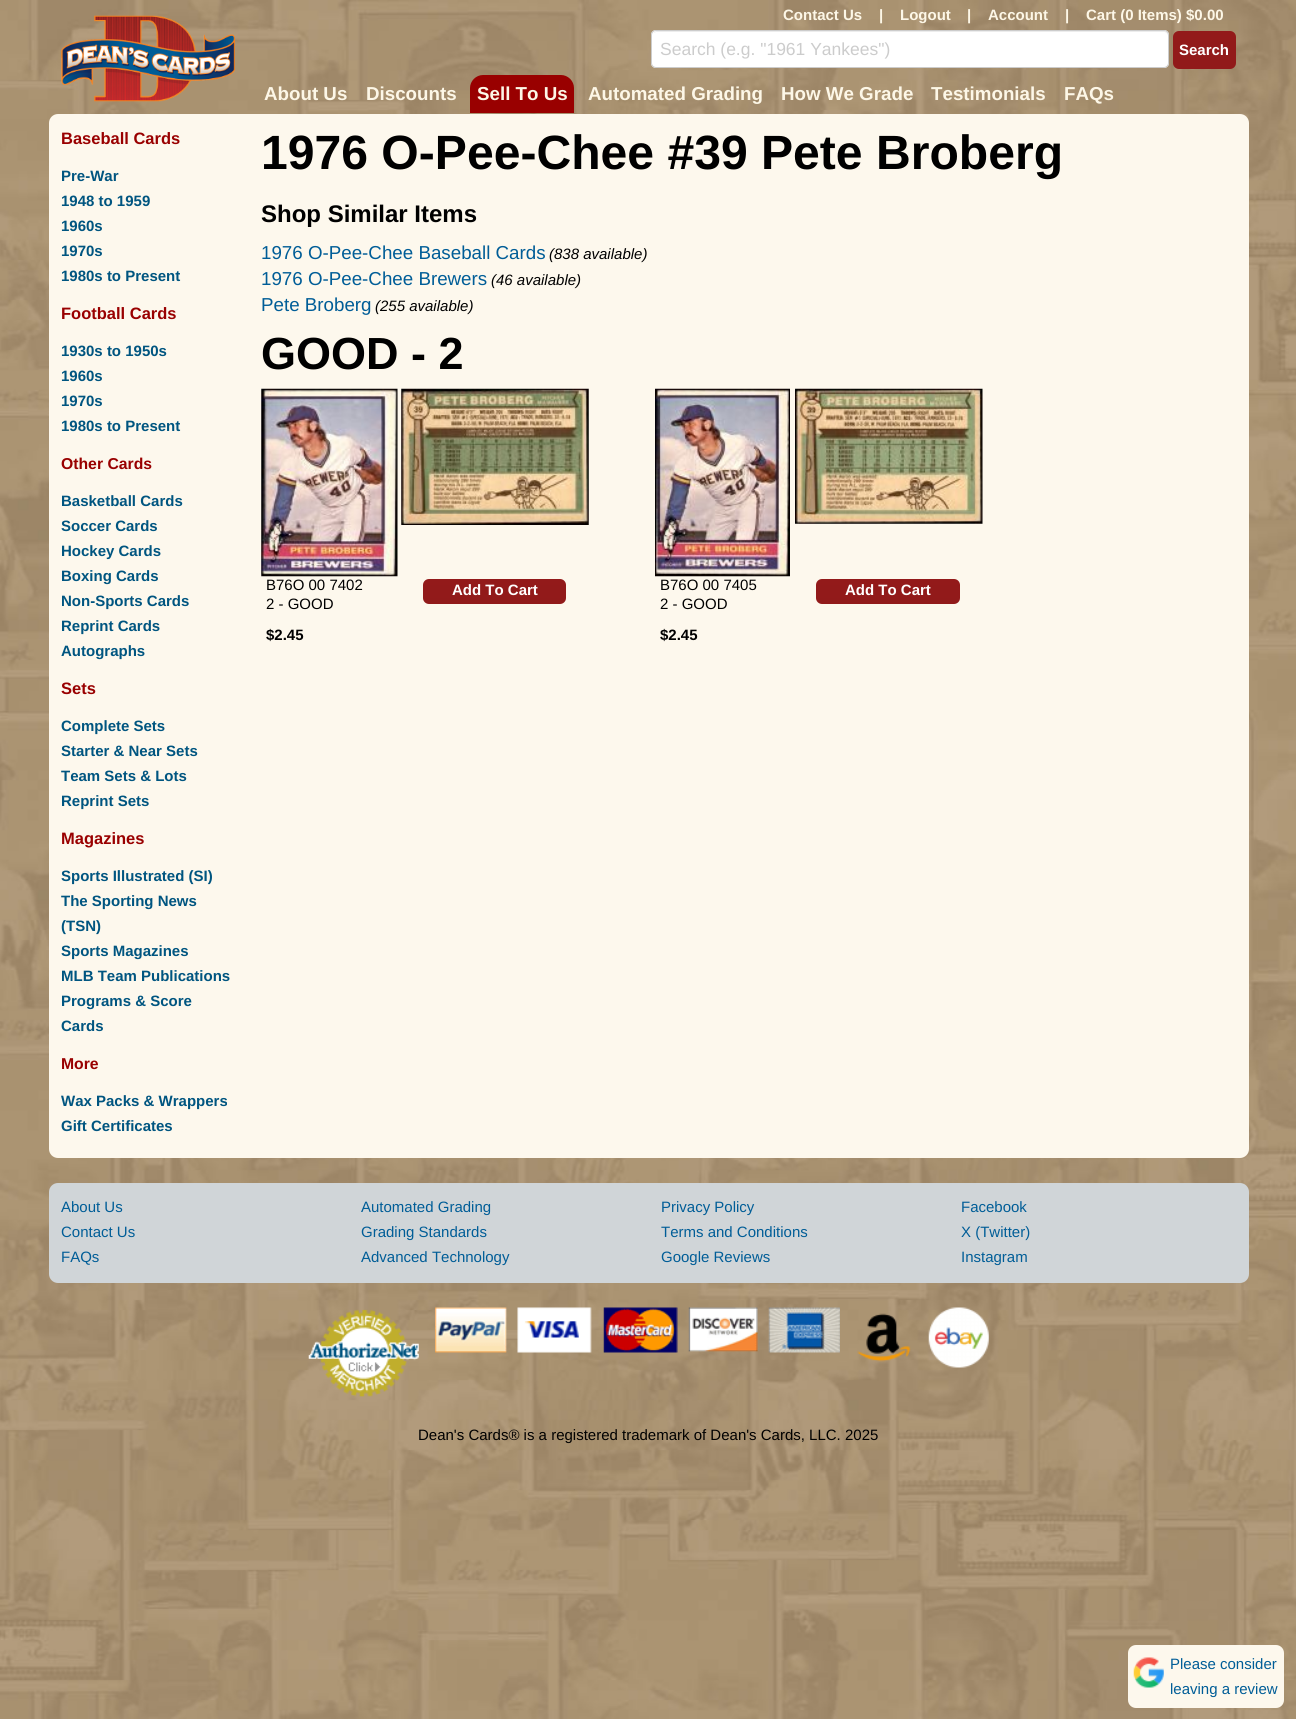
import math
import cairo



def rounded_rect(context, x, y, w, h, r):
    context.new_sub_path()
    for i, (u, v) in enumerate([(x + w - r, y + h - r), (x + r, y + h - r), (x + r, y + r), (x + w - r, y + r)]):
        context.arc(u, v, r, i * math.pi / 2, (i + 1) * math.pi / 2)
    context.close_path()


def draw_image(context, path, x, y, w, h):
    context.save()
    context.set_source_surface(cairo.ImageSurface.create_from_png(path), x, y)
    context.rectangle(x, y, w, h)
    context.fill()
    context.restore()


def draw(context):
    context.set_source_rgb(1, 1, 1)
    context.paint()
    draw_image(context, "images/1.png", 0, 0, 1296, 1719)
    draw_image(context, "images/2.png", 61, 15, 174, 87)
    context.set_source_rgb(1, 1, 1)
    rounded_rect(context, 651, 30, 518, 38, 5)
    context.fill()
    context.set_source_rgb(236 / 255, 236 / 255, 236 / 255)
    context.new_path()
    context.move_to(656, 32)
    context.line_to(1164, 32)
    context.curve_to(1166, 32, 1168, 34, 1168, 36)
    context.line_to(1168, 35)
    context.curve_to(1168, 33, 1166, 31, 1164, 31)
    context.line_to(657, 31)
    context.curve_to(656, 31, 654, 32, 654, 33)
    context.close_path()
    context.fill()
    rounded_rect(context, 651.5, 30.5, 517, 37, 4.5)
    context.set_source_rgb(204 / 255, 204 / 255, 204 / 255)
    context.set_line_width(1)
    context.stroke()
    gradient = cairo.LinearGradient(1204, 31, 1204, 69)
    gradient.add_color_stop_rgba(0, 147 / 255, 26 / 255, 26 / 255, 1)
    gradient.add_color_stop_rgba(1, 145 / 255, 26 / 255, 26 / 255, 1)
    context.set_source(gradient)
    rounded_rect(context, 1173, 31, 63, 38, 6)
    context.fill()
    context.set_source_rgb(153 / 255, 0, 0)
    context.new_path()
    context.move_to(483, 75)
    context.line_to(561, 75)
    context.curve_to(568, 75, 574, 81, 574, 88)
    context.line_to(574, 113)
    context.line_to(470, 113)
    context.line_to(470, 88)
    context.curve_to(470, 81, 476, 75, 483, 75)
    context.close_path()
    context.fill()
    context.set_source_rgb(253 / 255, 248 / 255, 237 / 255)
    rounded_rect(context, 49, 114, 1200, 1044, 9)
    context.fill()
    draw_image(context, "images/3.png", 261, 388, 137, 189)
    draw_image(context, "images/4.png", 401, 388, 188, 137)
    gradient = cairo.LinearGradient(494, 579, 494, 604)
    gradient.add_color_stop_rgba(0, 147 / 255, 26 / 255, 26 / 255, 1)
    gradient.add_color_stop_rgba(1, 145 / 255, 26 / 255, 26 / 255, 1)
    context.set_source(gradient)
    rounded_rect(context, 423, 579, 143, 25, 6)
    context.fill()
    draw_image(context, "images/5.png", 655, 388, 135, 189)
    draw_image(context, "images/6.png", 795, 388, 188, 136)
    gradient = cairo.LinearGradient(888, 579, 888, 604)
    gradient.add_color_stop_rgba(0, 147 / 255, 26 / 255, 26 / 255, 1)
    gradient.add_color_stop_rgba(1, 145 / 255, 26 / 255, 26 / 255, 1)
    context.set_source(gradient)
    rounded_rect(context, 816, 579, 144, 25, 6)
    context.fill()
    context.set_source_rgb(208 / 255, 213 / 255, 216 / 255)
    rounded_rect(context, 49, 1183, 1200, 100, 9)
    context.fill()
    draw_image(context, "images/7.png", 308, 1309, 111, 88)
    draw_image(context, "images/8.png", 435, 1307, 405, 46)
    draw_image(context, "images/9.png", 857, 1313, 54, 49)
    draw_image(context, "images/10.png", 928, 1307, 61, 61)
    context.set_source_rgb(253 / 255, 248 / 255, 237 / 255)
    rounded_rect(context, 1128, 1645, 156, 63, 8)
    context.fill()
    draw_image(context, "images/11.png", 1133, 1657, 31, 31)
    context.select_font_face("Liberation Sans", cairo.FontSlant.NORMAL, cairo.FontWeight.BOLD)
    context.set_font_size(15)
    context.set_source_rgb(253 / 255, 247 / 255, 231 / 255)
    context.move_to(783, 20)
    context.show_text("Contact Us")
    context.move_to(879, 20)
    context.show_text("|")
    context.move_to(900, 20)
    context.show_text("Logout")
    context.move_to(967, 20)
    context.show_text("|")
    context.move_to(988, 20)
    context.show_text("Account")
    context.move_to(1065, 20)
    context.show_text("|")
    context.move_to(1086, 20)
    context.show_text("Cart (0 Items) $0.00")
    context.select_font_face("Liberation Sans")
    context.set_font_size(17.5)
    context.set_source_rgb(204 / 255, 204 / 255, 204 / 255)
    context.move_to(660, 55)
    context.show_text("Search (e.g. \"1961 Yankees\")")
    context.select_font_face("Liberation Sans", cairo.FontSlant.NORMAL, cairo.FontWeight.BOLD)
    context.set_font_size(15)
    context.set_source_rgb(1, 1, 1)
    context.move_to(1179, 55)
    context.show_text("Search")
    context.set_font_size(18.75)
    context.set_source_rgb(253 / 255, 247 / 255, 231 / 255)
    context.move_to(264, 100)
    context.show_text("About Us")
    context.move_to(366, 100)
    context.show_text("Discounts")
    context.move_to(477, 100)
    context.show_text("Sell To Us")
    context.move_to(588, 100)
    context.show_text("Automated Grading")
    context.move_to(781, 100)
    context.show_text("How We Grade")
    context.move_to(931, 100)
    context.show_text("Testimonials")
    context.move_to(1064, 100)
    context.show_text("FAQs")
    context.set_font_size(16.5)
    context.set_source_rgb(153 / 255, 0, 0)
    context.move_to(61, 144)
    context.show_text("Baseball Cards")
    context.set_font_size(15)
    context.set_source_rgb(0, 85 / 255, 128 / 255)
    context.move_to(61, 181)
    context.show_text("Pre-War")
    context.move_to(61, 206)
    context.show_text("1948 to 1959")
    context.move_to(61, 231)
    context.show_text("1960s")
    context.move_to(61, 256)
    context.show_text("1970s")
    context.move_to(61, 281)
    context.show_text("1980s to Present")
    context.set_font_size(16.5)
    context.set_source_rgb(153 / 255, 0, 0)
    context.move_to(61, 319)
    context.show_text("Football Cards")
    context.set_font_size(15)
    context.set_source_rgb(0, 85 / 255, 128 / 255)
    context.move_to(61, 356)
    context.show_text("1930s to 1950s")
    context.move_to(61, 381)
    context.show_text("1960s")
    context.move_to(61, 406)
    context.show_text("1970s")
    context.move_to(61, 431)
    context.show_text("1980s to Present")
    context.set_font_size(15.75)
    context.set_source_rgb(153 / 255, 0, 0)
    context.move_to(61, 469)
    context.show_text("Other Cards")
    context.set_font_size(15)
    context.set_source_rgb(0, 85 / 255, 128 / 255)
    context.move_to(61, 506)
    context.show_text("Basketball Cards")
    context.move_to(61, 531)
    context.show_text("Soccer Cards")
    context.move_to(61, 556)
    context.show_text("Hockey Cards")
    context.move_to(61, 581)
    context.show_text("Boxing Cards")
    context.move_to(61, 606)
    context.show_text("Non-Sports Cards")
    context.move_to(61, 631)
    context.show_text("Reprint Cards")
    context.move_to(61, 656)
    context.show_text("Autographs")
    context.set_font_size(16.5)
    context.set_source_rgb(153 / 255, 0, 0)
    context.move_to(61, 694)
    context.show_text("Sets")
    context.set_font_size(15)
    context.set_source_rgb(0, 85 / 255, 128 / 255)
    context.move_to(61, 731)
    context.show_text("Complete Sets")
    context.move_to(61, 756)
    context.show_text("Starter & Near Sets")
    context.move_to(61, 781)
    context.show_text("Team Sets & Lots")
    context.move_to(61, 806)
    context.show_text("Reprint Sets")
    context.set_font_size(16.5)
    context.set_source_rgb(153 / 255, 0, 0)
    context.move_to(61, 844)
    context.show_text("Magazines")
    context.set_font_size(15)
    context.set_source_rgb(0, 85 / 255, 128 / 255)
    context.move_to(61, 881)
    context.show_text("Sports Illustrated (SI)")
    context.move_to(61, 906)
    context.show_text("The Sporting News")
    context.move_to(61, 931)
    context.show_text("(TSN)")
    context.move_to(61, 956)
    context.show_text("Sports Magazines")
    context.move_to(61, 981)
    context.show_text("MLB Team Publications")
    context.move_to(61, 1006)
    context.show_text("Programs & Score")
    context.move_to(61, 1031)
    context.show_text("Cards")
    context.set_font_size(15.75)
    context.set_source_rgb(153 / 255, 0, 0)
    context.move_to(61, 1069)
    context.show_text("More")
    context.set_font_size(15)
    context.set_source_rgb(0, 85 / 255, 128 / 255)
    context.move_to(61, 1106)
    context.show_text("Wax Packs & Wrappers")
    context.move_to(61, 1131)
    context.show_text("Gift Certificates")
    context.set_font_size(48.1)
    context.set_source_rgb(0, 0, 0)
    context.move_to(261, 169)
    context.show_text("1976 O-Pee-Chee #39 Pete Broberg")
    context.set_font_size(24)
    context.move_to(261, 222)
    context.show_text("Shop Similar Items")
    context.select_font_face("Liberation Sans")
    context.set_font_size(18.75)
    context.set_source_rgb(0, 93 / 255, 151 / 255)
    context.move_to(261, 259)
    context.show_text("1976 O-Pee-Chee Baseball Cards")
    context.select_font_face("Liberation Sans", cairo.FontSlant.ITALIC)
    context.set_font_size(15)
    context.set_source_rgb(0, 0, 0)
    context.move_to(549, 259)
    context.show_text("(838 available)")
    context.select_font_face("Liberation Sans")
    context.set_font_size(18.75)
    context.set_source_rgb(0, 93 / 255, 151 / 255)
    context.move_to(261, 285)
    context.show_text("1976 O-Pee-Chee Brewers")
    context.select_font_face("Liberation Sans", cairo.FontSlant.ITALIC)
    context.set_font_size(15)
    context.set_source_rgb(0, 0, 0)
    context.move_to(491, 285)
    context.show_text("(46 available)")
    context.select_font_face("Liberation Sans")
    context.set_font_size(18.75)
    context.set_source_rgb(0, 93 / 255, 151 / 255)
    context.move_to(261, 311)
    context.show_text("Pete Broberg")
    context.select_font_face("Liberation Sans", cairo.FontSlant.ITALIC)
    context.set_font_size(15)
    context.set_source_rgb(0, 0, 0)
    context.move_to(375, 311)
    context.show_text("(255 available)")
    context.select_font_face("Liberation Sans", cairo.FontSlant.NORMAL, cairo.FontWeight.BOLD)
    context.set_font_size(45)
    context.move_to(261, 369)
    context.show_text("GOOD - 2")
    context.select_font_face("Liberation Sans")
    context.set_font_size(15)
    context.move_to(266, 590)
    context.show_text("B76O 00 7402")
    context.move_to(266, 609)
    context.show_text("2 - GOOD")
    context.select_font_face("Liberation Sans", cairo.FontSlant.NORMAL, cairo.FontWeight.BOLD)
    context.move_to(266, 640)
    context.show_text("$2.45")
    context.set_source_rgb(1, 1, 1)
    context.move_to(452, 595)
    context.show_text("Add To Cart")
    context.select_font_face("Liberation Sans")
    context.set_source_rgb(0, 0, 0)
    context.move_to(660, 590)
    context.show_text("B76O 00 7405")
    context.move_to(660, 609)
    context.show_text("2 - GOOD")
    context.select_font_face("Liberation Sans", cairo.FontSlant.NORMAL, cairo.FontWeight.BOLD)
    context.move_to(660, 640)
    context.show_text("$2.45")
    context.set_source_rgb(1, 1, 1)
    context.move_to(845, 595)
    context.show_text("Add To Cart")
    context.select_font_face("Liberation Sans")
    context.set_source_rgb(0, 93 / 255, 151 / 255)
    context.move_to(61, 1212)
    context.show_text("About Us")
    context.move_to(61, 1237)
    context.show_text("Contact Us")
    context.move_to(61, 1262)
    context.show_text("FAQs")
    context.move_to(361, 1212)
    context.show_text("Automated Grading")
    context.move_to(361, 1237)
    context.show_text("Grading Standards")
    context.move_to(361, 1262)
    context.show_text("Advanced Technology")
    context.move_to(661, 1212)
    context.show_text("Privacy Policy")
    context.move_to(661, 1237)
    context.show_text("Terms and Conditions")
    context.move_to(661, 1262)
    context.show_text("Google Reviews")
    context.move_to(961, 1212)
    context.show_text("Facebook")
    context.move_to(961, 1237)
    context.show_text("X (Twitter)")
    context.move_to(961, 1262)
    context.show_text("Instagram")
    context.set_source_rgb(0, 0, 0)
    context.move_to(418, 1440)
    context.show_text("Dean's Cards® is a registered trademark of Dean's Cards, LLC. 2025")
    context.set_source_rgb(0, 93 / 255, 151 / 255)
    context.move_to(1170, 1669)
    context.show_text("Please consider")
    context.move_to(1170, 1694)
    context.show_text("leaving a review")


surface = cairo.ImageSurface(cairo.Format.RGB24, 1296, 1719)
context = cairo.Context(surface)
options = cairo.FontOptions()
options.set_hint_metrics(cairo.HintMetrics.OFF)
options.set_hint_style(cairo.HintStyle.NONE)
context.set_font_options(options)
context.set_miter_limit(4)
draw(context)
surface.write_to_png("out.png")
